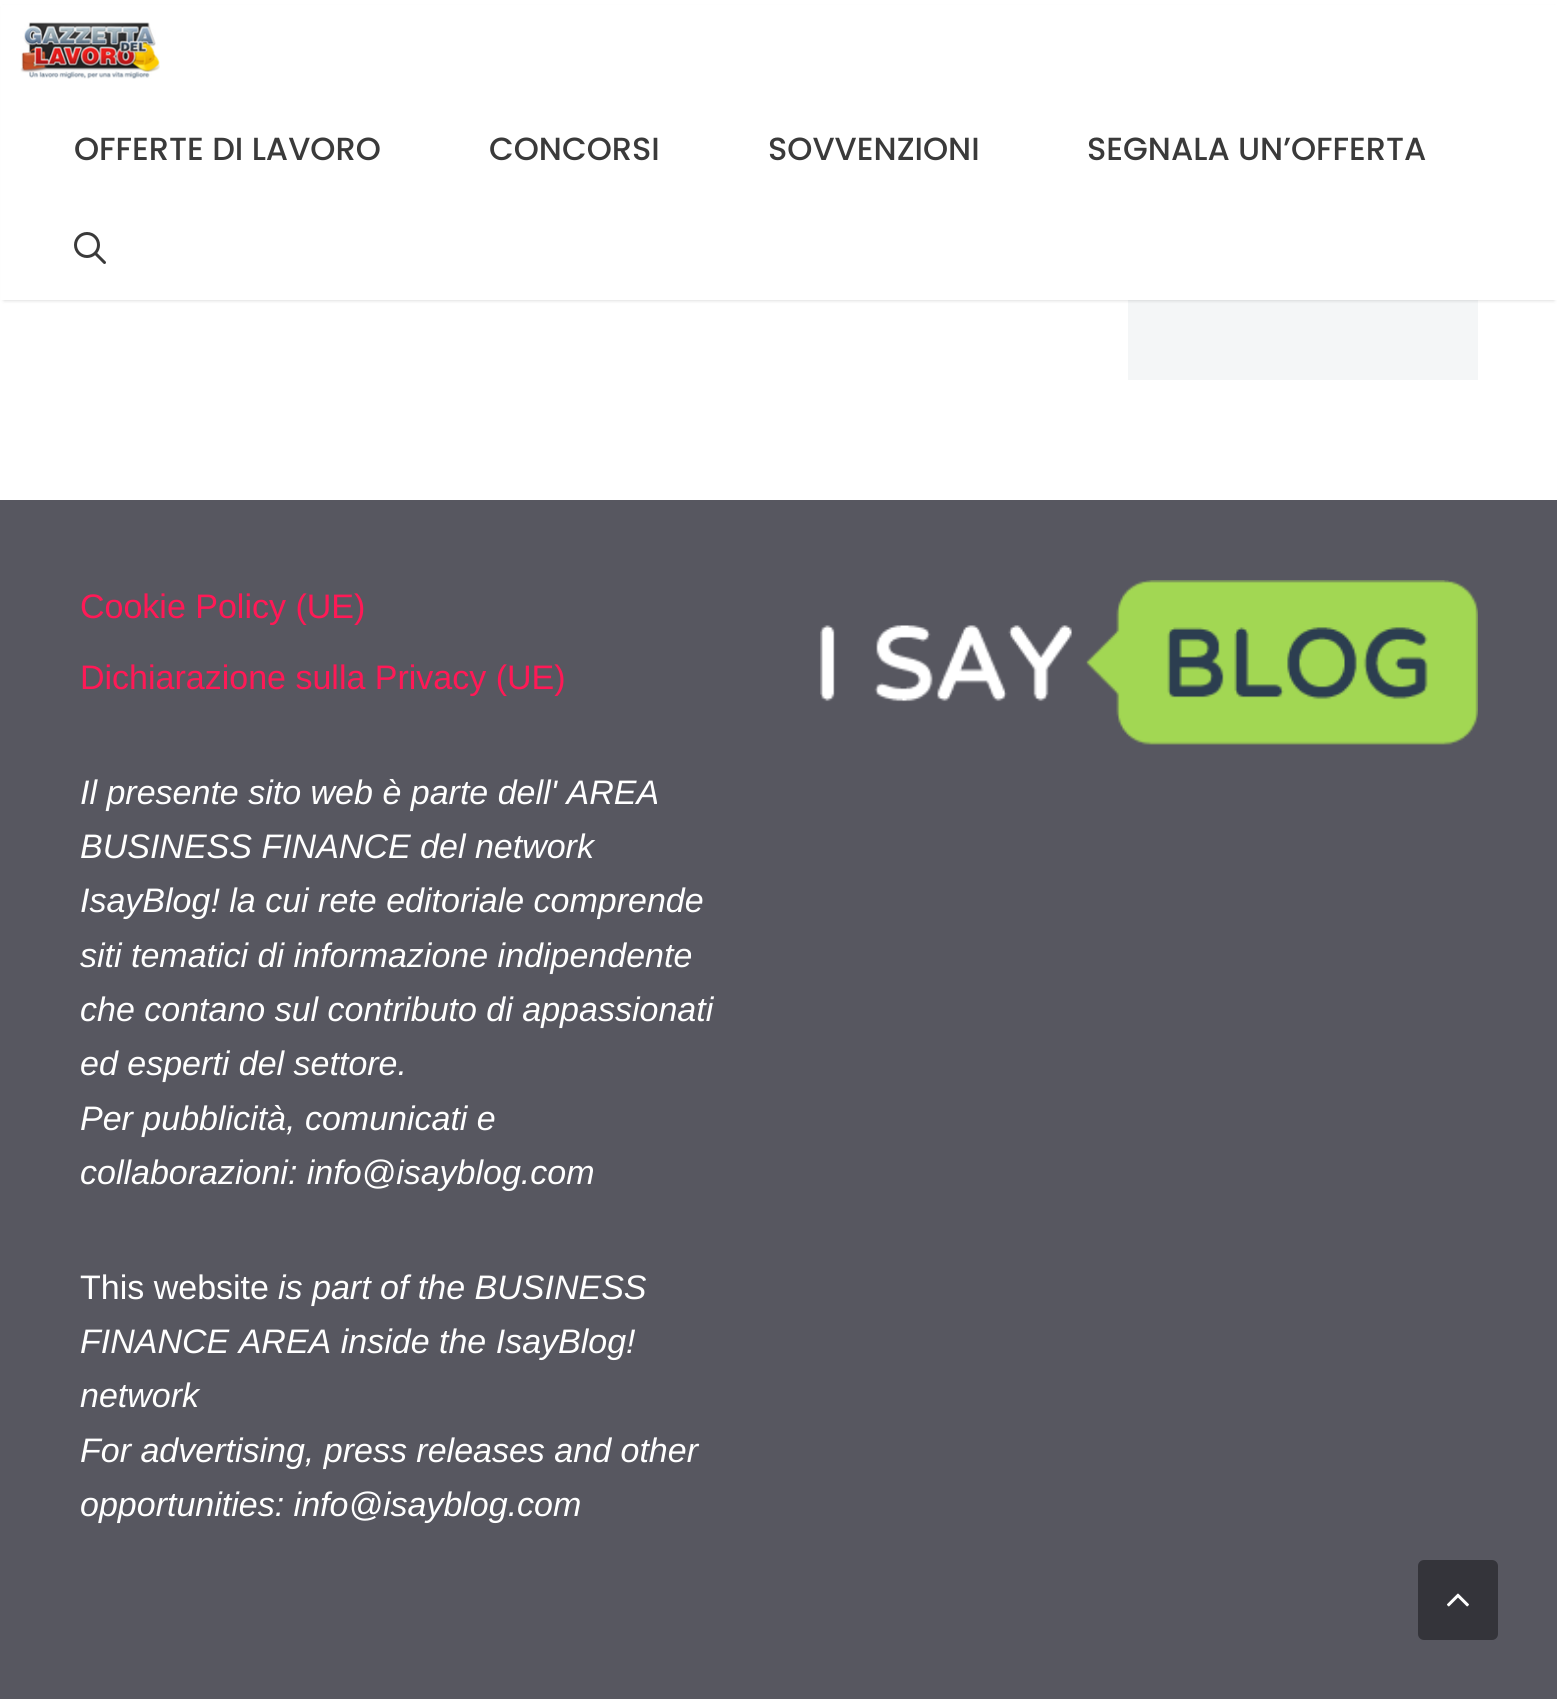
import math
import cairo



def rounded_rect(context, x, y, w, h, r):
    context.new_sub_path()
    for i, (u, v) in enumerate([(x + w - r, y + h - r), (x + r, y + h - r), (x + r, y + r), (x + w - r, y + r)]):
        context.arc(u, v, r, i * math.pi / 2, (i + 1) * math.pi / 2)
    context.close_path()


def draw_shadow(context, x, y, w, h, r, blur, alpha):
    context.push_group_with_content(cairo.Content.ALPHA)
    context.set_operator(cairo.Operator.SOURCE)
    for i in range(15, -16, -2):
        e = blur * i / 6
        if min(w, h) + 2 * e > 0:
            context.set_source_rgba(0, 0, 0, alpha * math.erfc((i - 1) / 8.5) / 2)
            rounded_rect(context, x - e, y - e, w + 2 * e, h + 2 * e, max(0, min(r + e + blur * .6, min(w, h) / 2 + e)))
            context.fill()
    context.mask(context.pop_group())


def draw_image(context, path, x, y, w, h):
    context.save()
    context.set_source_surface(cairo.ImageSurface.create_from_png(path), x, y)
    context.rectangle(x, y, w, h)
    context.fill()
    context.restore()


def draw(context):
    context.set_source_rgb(1, 1, 1)
    context.paint()
    context.set_source_rgb(244 / 255, 246 / 255, 247 / 255)
    context.rectangle(1128, 300, 350, 80)
    context.fill()
    context.set_source_rgb(0, 0, 0)
    draw_shadow(context, 4, 8, 1550, 292, 0, 2, 0.2)
    context.set_source_rgb(1, 1, 1)
    context.rectangle(1, 5, 1556, 295)
    context.fill()
    draw_image(context, "images/1.png", 20, 22, 140, 57)
    draw_image(context, "images/2.png", 74, 232, 32, 32)
    context.set_source_rgb(87 / 255, 87 / 255, 96 / 255)
    context.rectangle(0, 500, 1557, 1199)
    context.fill()
    draw_image(context, "images/3.png", 820, 580, 658, 165)
    context.set_source_rgb(52 / 255, 52 / 255, 58 / 255)
    rounded_rect(context, 1418, 1560, 80, 80, 6)
    context.fill()
    draw_image(context, "images/4.png", 1447, 1593, 22, 14)
    context.select_font_face("Poppins Medium")
    context.set_font_size(32)
    context.set_source_rgb(58 / 255, 58 / 255, 58 / 255)
    context.move_to(74, 160)
    context.show_text("OFFERTE DI LAVORO")
    context.move_to(489, 160)
    context.show_text("CONCORSI")
    context.move_to(768, 160)
    context.show_text("SOVVENZIONI")
    context.move_to(1087, 160)
    context.show_text("SEGNALA UN’OFFERTA")
    context.select_font_face("Liberation Sans")
    context.set_font_size(34)
    context.set_source_rgb(1, 25 / 255, 86 / 255)
    context.move_to(80, 618)
    context.show_text("Cookie Policy (UE)")
    context.move_to(80, 689)
    context.show_text("Dichiarazione sulla Privacy (UE)")
    context.select_font_face("Liberation Sans", cairo.FontSlant.ITALIC)
    context.set_source_rgb(1, 1, 1)
    context.move_to(80, 804)
    context.show_text("Il presente sito web è parte dell' AREA")
    context.move_to(80, 858)
    context.show_text("BUSINESS FINANCE del network")
    context.move_to(80, 912)
    context.show_text("IsayBlog! la cui rete editoriale comprende")
    context.move_to(80, 967)
    context.show_text("siti tematici di informazione indipendente")
    context.move_to(80, 1021)
    context.show_text("che contano sul contributo di appassionati")
    context.move_to(80, 1075)
    context.show_text("ed esperti del settore.")
    context.move_to(80, 1130)
    context.show_text("Per pubblicità, comunicati e")
    context.move_to(80, 1184)
    context.show_text("collaborazioni: info@isayblog.com")
    context.select_font_face("Liberation Sans")
    context.move_to(80, 1299)
    context.show_text("This website")
    context.select_font_face("Liberation Sans", cairo.FontSlant.ITALIC)
    context.move_to(278, 1299)
    context.show_text("is part of the BUSINESS")
    context.move_to(80, 1353)
    context.show_text("FINANCE AREA inside the IsayBlog!")
    context.move_to(80, 1407)
    context.show_text("network")
    context.move_to(80, 1462)
    context.show_text("For advertising, press releases and other")
    context.move_to(80, 1516)
    context.show_text("opportunities: info@isayblog.com")


surface = cairo.ImageSurface(cairo.Format.RGB24, 1557, 1699)
context = cairo.Context(surface)
options = cairo.FontOptions()
options.set_hint_metrics(cairo.HintMetrics.OFF)
options.set_hint_style(cairo.HintStyle.NONE)
context.set_font_options(options)
context.set_miter_limit(4)
draw(context)
surface.write_to_png("out.png")
